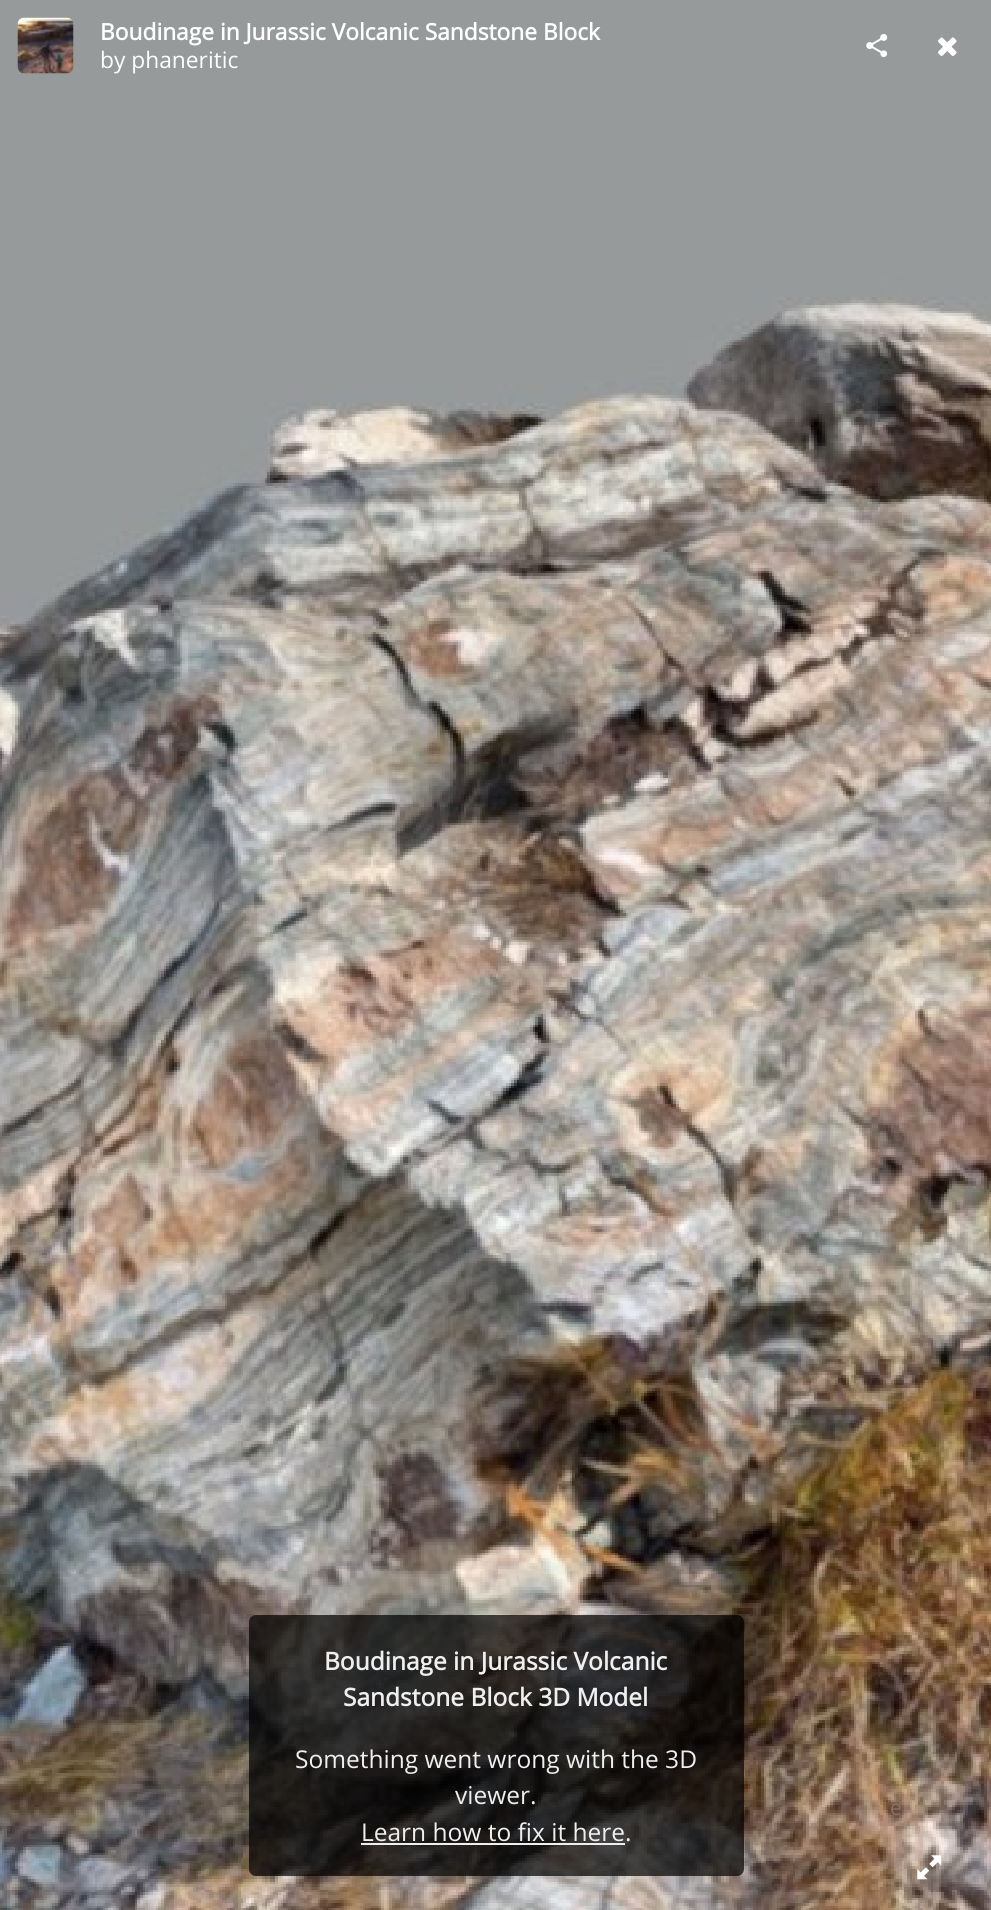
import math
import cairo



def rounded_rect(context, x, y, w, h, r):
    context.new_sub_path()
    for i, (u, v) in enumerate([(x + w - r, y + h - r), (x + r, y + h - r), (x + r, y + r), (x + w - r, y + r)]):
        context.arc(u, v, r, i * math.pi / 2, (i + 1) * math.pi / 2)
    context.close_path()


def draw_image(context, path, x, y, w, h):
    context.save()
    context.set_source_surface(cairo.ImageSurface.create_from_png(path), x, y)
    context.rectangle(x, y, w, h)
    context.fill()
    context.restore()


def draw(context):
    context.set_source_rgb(1, 1, 1)
    context.paint()
    draw_image(context, "images/4.png", 0, 0, 991, 1910)
    draw_image(context, "images/1.png", 17, 17, 57, 57)
    draw_image(context, "images/2.png", 866, 33, 22, 25)
    draw_image(context, "images/3.png", 938, 37, 19, 19)
    context.set_source_rgba(0, 0, 0, 0.7)
    rounded_rect(context, 249, 1615, 495, 261, 7)
    context.fill()
    context.set_source_rgb(239 / 255, 239 / 255, 239 / 255)
    context.rectangle(361, 1843, 264, 2)
    context.fill()
    draw_image(context, "images/5.png", 917, 1855, 25, 25)
    context.select_font_face("Open Sans", cairo.FontSlant.NORMAL, cairo.FontWeight.BOLD)
    context.set_font_size(22.75)
    context.set_source_rgb(1, 1, 1)
    context.move_to(100, 40)
    context.show_text("Boudinage in Jurassic Volcanic Sandstone Block")
    context.select_font_face("Open Sans")
    context.move_to(100, 68)
    context.show_text("by phaneritic")
    context.select_font_face("Open Sans", cairo.FontSlant.NORMAL, cairo.FontWeight.BOLD)
    context.set_font_size(24.5)
    context.set_source_rgb(239 / 255, 239 / 255, 239 / 255)
    context.move_to(324, 1670)
    context.show_text("Boudinage in Jurassic Volcanic")
    context.move_to(343, 1706)
    context.show_text("Sandstone Block 3D Model")
    context.select_font_face("Open Sans")
    context.move_to(295, 1768)
    context.show_text("Something went wrong with the 3D")
    context.move_to(455, 1804)
    context.show_text("viewer.")
    context.move_to(361, 1841)
    context.show_text("Learn how to fix it here.")
    context.set_font_size(21)
    context.set_source_rgb(139 / 255, 113 / 255, 96 / 255)
    context.move_to(890, 1815)
    context.show_text("e")


surface = cairo.ImageSurface(cairo.Format.RGB24, 991, 1910)
context = cairo.Context(surface)
options = cairo.FontOptions()
options.set_hint_metrics(cairo.HintMetrics.OFF)
options.set_hint_style(cairo.HintStyle.NONE)
context.set_font_options(options)
context.set_miter_limit(4)
draw(context)
surface.write_to_png("out.png")
